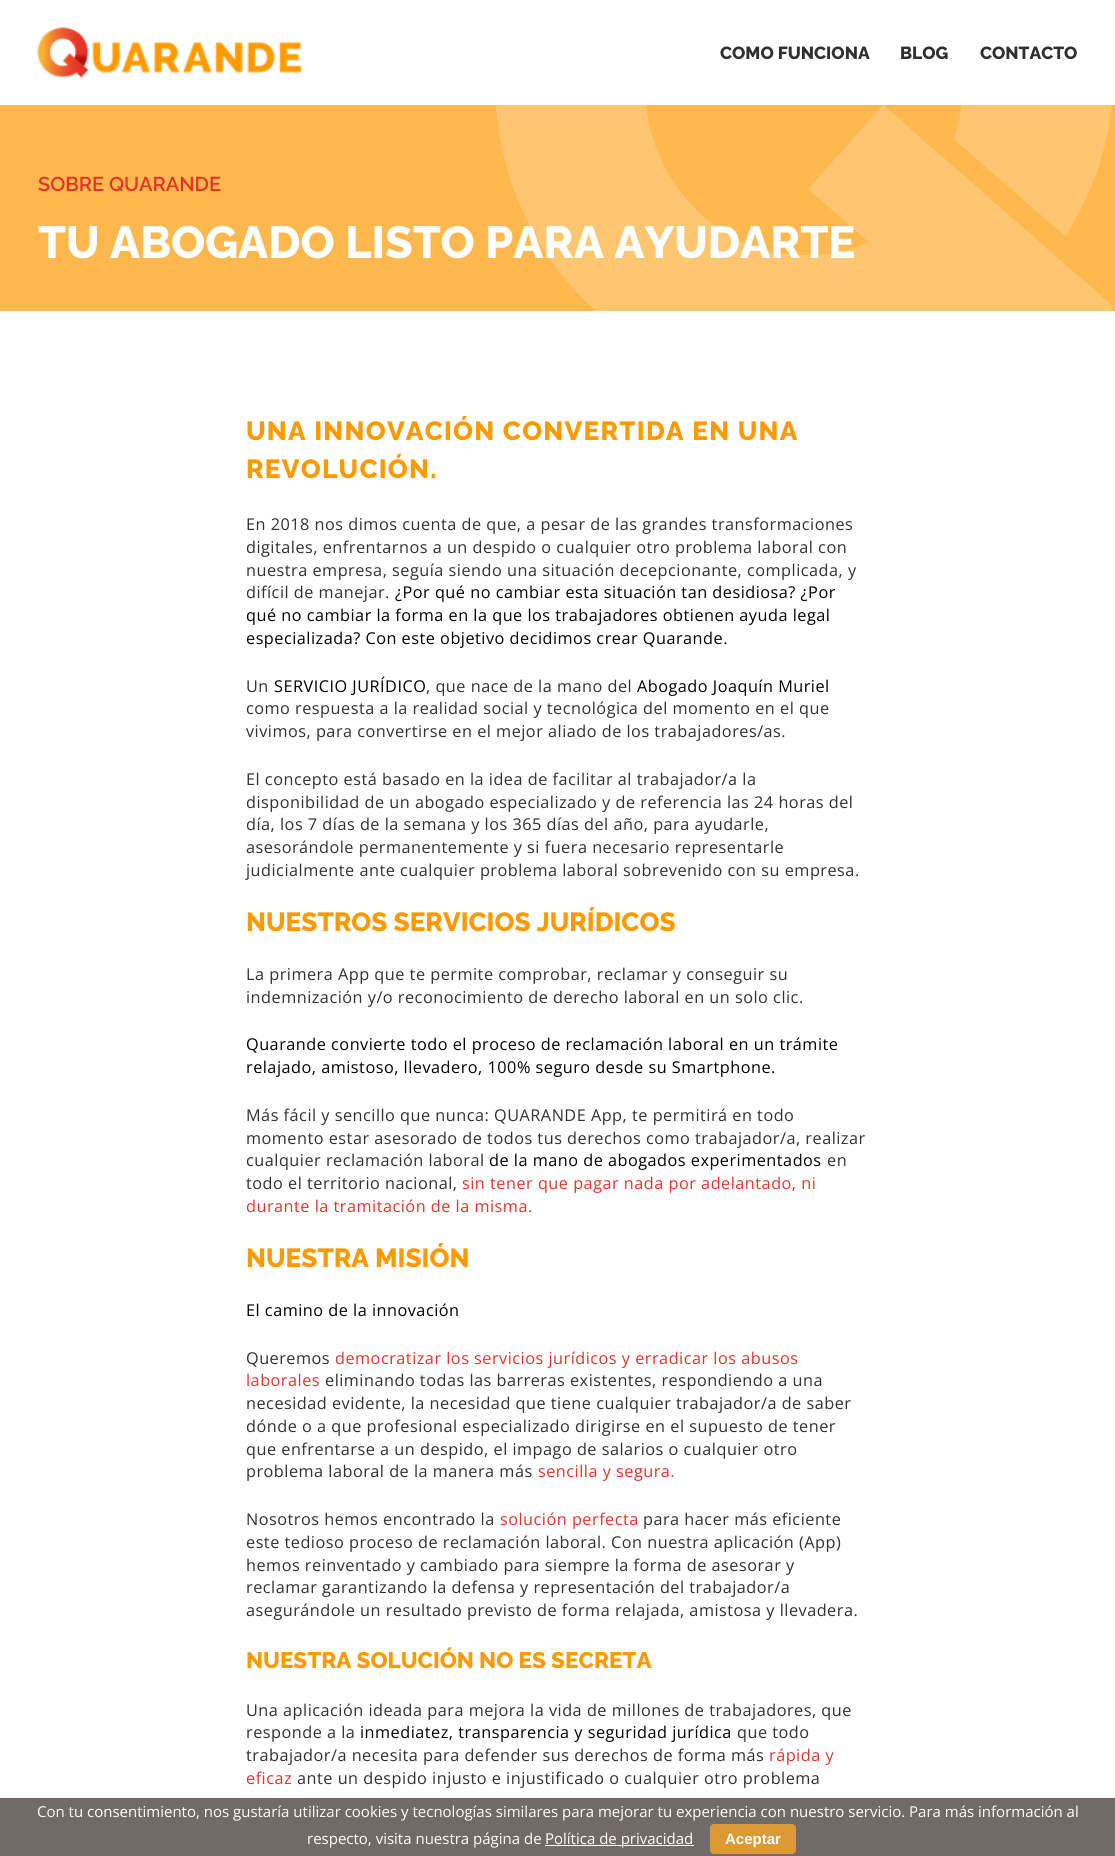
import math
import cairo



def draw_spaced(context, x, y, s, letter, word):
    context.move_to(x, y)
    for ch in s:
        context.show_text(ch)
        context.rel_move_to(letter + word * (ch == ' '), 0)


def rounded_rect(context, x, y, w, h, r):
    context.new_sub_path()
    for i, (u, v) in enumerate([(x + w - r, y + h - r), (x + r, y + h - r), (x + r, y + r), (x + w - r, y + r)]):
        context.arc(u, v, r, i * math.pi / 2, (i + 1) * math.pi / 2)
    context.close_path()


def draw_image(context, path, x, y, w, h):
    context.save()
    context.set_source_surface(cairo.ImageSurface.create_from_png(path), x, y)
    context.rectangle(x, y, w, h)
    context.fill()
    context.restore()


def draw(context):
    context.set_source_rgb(1, 1, 1)
    context.paint()
    draw_image(context, "images/1.png", 37, 27, 265, 51)
    context.set_source_rgb(1, 184 / 255, 77 / 255)
    context.rectangle(0, 105, 1115, 206)
    context.fill()
    draw_image(context, "images/2.png", 496, 105, 618, 206)
    context.set_source_rgb(114 / 255, 106 / 255, 103 / 255)
    context.rectangle(0, 1798, 1115, 58)
    context.fill()
    context.set_source_rgb(1, 1, 1)
    context.rectangle(545, 1845, 149, 1)
    context.fill()
    context.set_source_rgb(221 / 255, 153 / 255, 51 / 255)
    rounded_rect(context, 710, 1824, 86, 30, 4)
    context.fill()
    context.select_font_face("Raleway ExtraBold")
    context.set_font_size(17.5)
    context.set_source_rgb(48 / 255, 48 / 255, 48 / 255)
    context.move_to(720, 59)
    context.show_text("COMO FUNCIONA")
    context.move_to(900, 59)
    context.show_text("BLOG")
    context.move_to(980, 59)
    context.show_text("CONTACTO")
    context.select_font_face("Raleway SemiBold")
    context.set_font_size(20)
    context.set_source_rgb(229 / 255, 51 / 255, 42 / 255)
    context.move_to(38, 191)
    context.show_text("SOBRE QUARANDE")
    context.select_font_face("Raleway ExtraBold")
    context.set_font_size(45)
    context.set_source_rgb(1, 1, 1)
    context.move_to(38, 258)
    context.show_text("TU ABOGADO LISTO PARA AYUDARTE")
    context.set_font_size(26.25)
    context.set_source_rgb(1, 153 / 255, 0)
    draw_spaced(context, 246, 440, "UNA INNOVACIÓN CONVERTIDA EN UNA", 1.25, 0)
    draw_spaced(context, 246, 478, "REVOLUCIÓN.", 1.25, 0)
    context.select_font_face("Open Sans")
    context.set_font_size(16.25)
    context.set_source_rgb(48 / 255, 48 / 255, 48 / 255)
    draw_spaced(context, 246, 530, "En 2018 nos dimos cuenta de que, a pesar de las grandes transformaciones", 0.5, 0)
    draw_spaced(context, 246, 553, "digitales, enfrentarnos a un despido o cualquier otro problema laboral con", 0.5, 0)
    draw_spaced(context, 246, 576, "nuestra empresa, seguía siendo una situación decepcionante, complicada, y", 0.5, 0)
    draw_spaced(context, 246, 598, "difícil de manejar.", 0.5, 0)
    context.set_source_rgb(0, 0, 0)
    draw_spaced(context, 395, 598, "¿Por qué no cambiar esta situación tan desidiosa? ¿Por", 0.5, 0)
    draw_spaced(context, 246, 621, "qué no cambiar la forma en la que los trabajadores obtienen ayuda legal", 0.5, 0)
    draw_spaced(context, 246, 644, "especializada? Con este objetivo decidimos crear Quarande.", 0.5, 0)
    context.set_source_rgb(48 / 255, 48 / 255, 48 / 255)
    draw_spaced(context, 246, 692, "Un", 0.5, 0)
    context.set_source_rgb(0, 0, 0)
    draw_spaced(context, 274, 692, "SERVICIO JURÍDICO", 0.5, 0)
    context.set_source_rgb(48 / 255, 48 / 255, 48 / 255)
    draw_spaced(context, 426, 692, ", que nace de la mano del", 0.5, 0)
    context.set_source_rgb(0, 0, 0)
    draw_spaced(context, 637, 692, "Abogado Joaquín Muriel", 0.5, 0)
    context.set_source_rgb(48 / 255, 48 / 255, 48 / 255)
    draw_spaced(context, 246, 714, "como respuesta a la realidad social y tecnológica del momento en el que", 0.5, 0)
    draw_spaced(context, 246, 737, "vivimos, para convertirse en el mejor aliado de los trabajadores/as.", 0.5, 0)
    draw_spaced(context, 246, 785, "El concepto está basado en la idea de facilitar al trabajador/a la", 0.5, 0)
    draw_spaced(context, 246, 808, "disponibilidad de un abogado especializado y de referencia las 24 horas del", 0.5, 0)
    draw_spaced(context, 246, 830, "día, los 7 días de la semana y los 365 días del año, para ayudarle,", 0.5, 0)
    draw_spaced(context, 246, 853, "asesorándole permanentemente y si fuera necesario representarle", 0.5, 0)
    draw_spaced(context, 246, 876, "judicialmente ante cualquier problema laboral sobrevenido con su empresa.", 0.5, 0)
    context.select_font_face("Raleway ExtraBold")
    context.set_font_size(26.25)
    context.set_source_rgb(1, 153 / 255, 0)
    context.move_to(246, 931)
    context.show_text("NUESTROS SERVICIOS JURÍDICOS")
    context.select_font_face("Open Sans")
    context.set_font_size(16.25)
    context.set_source_rgb(48 / 255, 48 / 255, 48 / 255)
    draw_spaced(context, 246, 980, "La primera App que te permite comprobar, reclamar y conseguir su", 0.5, 0)
    draw_spaced(context, 246, 1003, "indemnización y/o reconocimiento de derecho laboral en un solo clic.", 0.5, 0)
    context.set_source_rgb(0, 0, 0)
    draw_spaced(context, 246, 1050, "Quarande convierte todo el proceso de reclamación laboral en un trámite", 0.5, 0)
    draw_spaced(context, 246, 1073, "relajado, amistoso, llevadero, 100% seguro desde su Smartphone.", 0.5, 0)
    context.set_source_rgb(48 / 255, 48 / 255, 48 / 255)
    draw_spaced(context, 246, 1121, "Más fácil y sencillo que nunca: QUARANDE App, te permitirá en todo", 0.5, 0)
    draw_spaced(context, 246, 1144, "momento estar asesorado de todos tus derechos como trabajador/a, realizar", 0.5, 0)
    draw_spaced(context, 246, 1166, "cualquier reclamación laboral", 0.5, 0)
    context.set_source_rgb(0, 0, 0)
    draw_spaced(context, 489, 1166, "de la mano de abogados experimentados", 0.5, 0)
    context.set_source_rgb(48 / 255, 48 / 255, 48 / 255)
    draw_spaced(context, 827, 1166, "en", 0.5, 0)
    draw_spaced(context, 246, 1189, "todo el territorio nacional,", 0.5, 0)
    context.set_source_rgb(229 / 255, 51 / 255, 42 / 255)
    draw_spaced(context, 462, 1189, "sin tener que pagar nada por adelantado, ni", 0.5, 0)
    draw_spaced(context, 246, 1212, "durante la tramitación de la misma.", 0.5, 0)
    context.select_font_face("Raleway ExtraBold")
    context.set_font_size(26.25)
    context.set_source_rgb(1, 153 / 255, 0)
    context.move_to(246, 1267)
    context.show_text("NUESTRA MISIÓN")
    context.select_font_face("Open Sans")
    context.set_font_size(16.25)
    context.set_source_rgb(0, 0, 0)
    draw_spaced(context, 246, 1316, "El camino de la innovación", 0.5, 0)
    context.set_source_rgb(48 / 255, 48 / 255, 48 / 255)
    draw_spaced(context, 246, 1364, "Queremos", 0.5, 0)
    context.set_source_rgb(229 / 255, 51 / 255, 42 / 255)
    draw_spaced(context, 335, 1364, "democratizar los servicios jurídicos y erradicar los abusos", 0.5, 0)
    draw_spaced(context, 246, 1386, "laborales", 0.5, 0)
    context.set_source_rgb(48 / 255, 48 / 255, 48 / 255)
    draw_spaced(context, 325, 1386, "eliminando todas las barreras existentes, respondiendo a una", 0.5, 0)
    draw_spaced(context, 246, 1409, "necesidad evidente, la necesidad que tiene cualquier trabajador/a de saber", 0.5, 0)
    draw_spaced(context, 246, 1432, "dónde o a que profesional especializado dirigirse en el supuesto de tener", 0.5, 0)
    draw_spaced(context, 246, 1455, "que enfrentarse a un despido, el impago de salarios o cualquier otro", 0.5, 0)
    draw_spaced(context, 246, 1477, "problema laboral de la manera más", 0.5, 0)
    context.set_source_rgb(229 / 255, 51 / 255, 42 / 255)
    draw_spaced(context, 538, 1477, "sencilla y segura.", 0.5, 0)
    context.set_source_rgb(48 / 255, 48 / 255, 48 / 255)
    draw_spaced(context, 246, 1525, "Nosotros hemos encontrado la", 0.5, 0)
    context.set_source_rgb(229 / 255, 51 / 255, 42 / 255)
    draw_spaced(context, 500, 1525, "solución perfecta", 0.5, 0)
    context.set_source_rgb(48 / 255, 48 / 255, 48 / 255)
    draw_spaced(context, 643, 1525, "para hacer más eficiente", 0.5, 0)
    draw_spaced(context, 246, 1548, "este tedioso proceso de reclamación laboral. Con nuestra aplicación (App)", 0.5, 0)
    draw_spaced(context, 246, 1571, "hemos reinventado y cambiado para siempre la forma de asesorar y", 0.5, 0)
    draw_spaced(context, 246, 1593, "reclamar garantizando la defensa y representación del trabajador/a", 0.5, 0)
    draw_spaced(context, 246, 1616, "asegurándole un resultado previsto de forma relajada, amistosa y llevadera.", 0.5, 0)
    context.select_font_face("Raleway ExtraBold")
    context.set_font_size(22.5)
    context.set_source_rgb(1, 153 / 255, 0)
    context.move_to(246, 1668)
    context.show_text("NUESTRA SOLUCIÓN NO ES SECRETA")
    context.select_font_face("Open Sans")
    context.set_font_size(16.25)
    context.set_source_rgb(48 / 255, 48 / 255, 48 / 255)
    draw_spaced(context, 246, 1716, "Una aplicación ideada para mejora la vida de millones de trabajadores, que", 0.5, 0)
    draw_spaced(context, 246, 1738, "responde a la", 0.5, 0)
    context.set_source_rgb(0, 0, 0)
    draw_spaced(context, 360, 1738, "inmediatez, transparencia y seguridad jurídica", 0.5, 0)
    context.set_source_rgb(48 / 255, 48 / 255, 48 / 255)
    draw_spaced(context, 737, 1738, "que todo", 0.5, 0)
    draw_spaced(context, 246, 1761, "trabajador/a necesita para defender sus derechos de forma más", 0.5, 0)
    context.set_source_rgb(229 / 255, 51 / 255, 42 / 255)
    draw_spaced(context, 769, 1761, "rápida y", 0.5, 0)
    draw_spaced(context, 246, 1784, "eficaz", 0.5, 0)
    context.set_source_rgb(48 / 255, 48 / 255, 48 / 255)
    draw_spaced(context, 297, 1784, "ante un despido injusto e injustificado o cualquier otro problema", 0.5, 0)
    context.set_font_size(15)
    context.set_source_rgb(1, 1, 1)
    context.move_to(37, 1817)
    context.show_text("Con tu consentimiento, nos gustaría utilizar cookies y tecnologías similares para mejorar tu experiencia con nuestro servicio. Para más información al")
    context.move_to(307, 1844)
    context.show_text("respecto, visita nuestra página de")
    context.move_to(545, 1844)
    context.show_text("Política de privacidad")
    context.select_font_face("Liberation Sans", cairo.FontSlant.NORMAL, cairo.FontWeight.BOLD)
    context.move_to(725, 1844)
    context.show_text("Aceptar")


surface = cairo.ImageSurface(cairo.Format.RGB24, 1115, 1856)
context = cairo.Context(surface)
options = cairo.FontOptions()
options.set_hint_metrics(cairo.HintMetrics.OFF)
options.set_hint_style(cairo.HintStyle.NONE)
context.set_font_options(options)
context.set_miter_limit(4)
draw(context)
surface.write_to_png("out.png")
